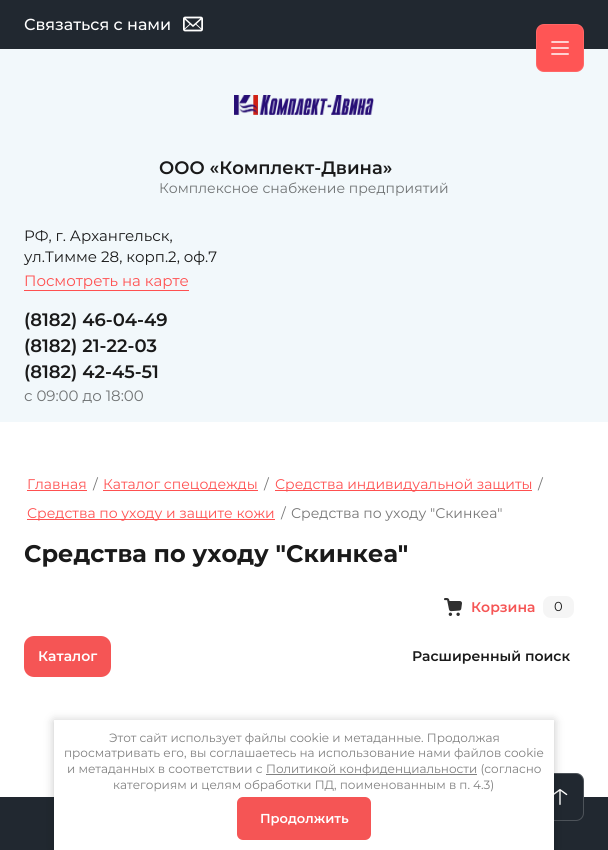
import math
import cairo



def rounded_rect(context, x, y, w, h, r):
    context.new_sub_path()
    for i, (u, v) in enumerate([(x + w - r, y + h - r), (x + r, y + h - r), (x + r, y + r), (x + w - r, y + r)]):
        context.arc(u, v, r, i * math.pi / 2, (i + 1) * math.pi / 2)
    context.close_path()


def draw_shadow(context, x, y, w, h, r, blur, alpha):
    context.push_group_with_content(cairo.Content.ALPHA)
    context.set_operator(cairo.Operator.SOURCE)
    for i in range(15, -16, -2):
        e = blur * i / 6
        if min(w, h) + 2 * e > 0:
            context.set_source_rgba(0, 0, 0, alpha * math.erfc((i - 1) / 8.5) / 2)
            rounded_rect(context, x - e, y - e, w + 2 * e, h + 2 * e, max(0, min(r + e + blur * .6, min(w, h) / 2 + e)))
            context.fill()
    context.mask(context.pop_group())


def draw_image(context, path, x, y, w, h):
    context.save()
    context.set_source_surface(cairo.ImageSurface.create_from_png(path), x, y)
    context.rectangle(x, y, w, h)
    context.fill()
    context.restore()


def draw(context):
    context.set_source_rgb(242 / 255, 248 / 255, 251 / 255)
    context.paint()
    context.set_source_rgb(33 / 255, 40 / 255, 48 / 255)
    context.rectangle(0, 0, 608, 49)
    context.fill()
    draw_image(context, "images/1.png", 183, 16, 20, 16)
    context.set_source_rgb(1, 85 / 255, 85 / 255)
    rounded_rect(context, 536, 24, 48, 48, 8)
    context.fill()
    rounded_rect(context, 536.5, 24.5, 47, 47, 7.5)
    context.set_source_rgba(1, 1, 254 / 255, 0.1)
    context.set_line_width(1)
    context.stroke()
    draw_image(context, "images/2.png", 551, 41, 18, 14)
    draw_image(context, "images/3.png", 234, 95, 140, 20)
    context.set_source_rgb(1, 80 / 255, 80 / 255)
    context.rectangle(24, 290, 165, 1)
    context.fill()
    context.set_source_rgb(1, 1, 1)
    context.rectangle(0, 422, 608, 375)
    context.fill()
    context.set_source_rgb(1, 80 / 255, 80 / 255)
    context.rectangle(27, 490, 60, 1)
    context.fill()
    context.rectangle(103, 490, 155, 1)
    context.fill()
    context.rectangle(275, 490, 257, 1)
    context.fill()
    context.rectangle(27, 519, 248, 1)
    context.fill()
    draw_image(context, "images/4.png", 444, 598, 18, 18)
    context.set_source_rgb(245 / 255, 245 / 255, 245 / 255)
    rounded_rect(context, 543, 596, 31, 22, 8)
    context.fill()
    context.set_source_rgb(245 / 255, 85 / 255, 85 / 255)
    rounded_rect(context, 24, 636, 87, 41, 10)
    context.fill()
    context.set_source_rgb(33 / 255, 40 / 255, 48 / 255)
    context.rectangle(0, 797, 608, 53)
    context.fill()
    rounded_rect(context, 536, 773, 48, 48, 8)
    context.fill()
    rounded_rect(context, 536.5, 773.5, 47, 47, 7.5)
    context.set_source_rgba(1, 1, 254 / 255, 0.2)
    context.stroke()
    draw_image(context, "images/5.png", 554, 789, 14, 16)
    context.set_source_rgb(0, 0, 0)
    draw_shadow(context, 54, 721, 500, 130, 0, 5, 0.23)
    context.set_source_rgb(1, 1, 1)
    context.rectangle(54, 720, 500, 130)
    context.fill()
    context.set_source_rgb(128 / 255, 128 / 255, 128 / 255)
    context.rectangle(266, 774, 211, 1)
    context.fill()
    context.set_source_rgb(245 / 255, 85 / 255, 85 / 255)
    rounded_rect(context, 237, 797, 134, 43, 6)
    context.fill()
    context.select_font_face("Montserrat Medium")
    context.set_font_size(16)
    context.set_source_rgb(1, 1, 1)
    context.move_to(24, 30)
    context.show_text("Связаться с нами")
    context.select_font_face("Montserrat SemiBold")
    context.set_font_size(18)
    context.set_source_rgb(26 / 255, 26 / 255, 26 / 255)
    context.move_to(159, 174)
    context.show_text("ООО «Комплект-Двина»")
    context.select_font_face("Montserrat")
    context.set_font_size(14)
    context.set_source_rgb(112 / 255, 115 / 255, 116 / 255)
    context.move_to(159, 193)
    context.show_text("Комплексное снабжение предприятий")
    context.set_font_size(15)
    context.set_source_rgb(26 / 255, 26 / 255, 26 / 255)
    context.move_to(24, 241)
    context.show_text("РФ, г. Архангельск,")
    context.move_to(24, 262)
    context.show_text("ул.Тимме 28, корп.2, оф.7")
    context.set_source_rgb(1, 80 / 255, 80 / 255)
    context.move_to(24, 286)
    context.show_text("Посмотреть на карте")
    context.select_font_face("Montserrat SemiBold")
    context.set_font_size(18)
    context.set_source_rgb(26 / 255, 26 / 255, 26 / 255)
    context.move_to(24, 326)
    context.show_text("(8182) 46-04-49")
    context.move_to(24, 352)
    context.show_text("(8182) 21-22-03")
    context.move_to(24, 378)
    context.show_text("(8182) 42-45-51")
    context.select_font_face("Montserrat")
    context.set_font_size(15)
    context.set_source_rgb(112 / 255, 115 / 255, 116 / 255)
    context.move_to(24, 401)
    context.show_text("с 09:00 до 18:00")
    context.set_font_size(14)
    context.set_source_rgb(1, 80 / 255, 80 / 255)
    context.move_to(27, 489)
    context.show_text("Главная")
    context.set_source_rgb(118 / 255, 118 / 255, 118 / 255)
    context.move_to(93, 489)
    context.show_text("/")
    context.set_source_rgb(1, 80 / 255, 80 / 255)
    context.move_to(103, 489)
    context.show_text("Каталог спецодежды")
    context.set_source_rgb(118 / 255, 118 / 255, 118 / 255)
    context.move_to(264, 489)
    context.show_text("/")
    context.set_source_rgb(1, 80 / 255, 80 / 255)
    context.move_to(275, 489)
    context.show_text("Средства индивидуальной защиты")
    context.set_source_rgb(118 / 255, 118 / 255, 118 / 255)
    context.move_to(538, 489)
    context.show_text("/")
    context.set_source_rgb(1, 80 / 255, 80 / 255)
    context.move_to(27, 518)
    context.show_text("Средства по уходу и защите кожи")
    context.set_source_rgb(118 / 255, 118 / 255, 118 / 255)
    context.move_to(281, 518)
    context.show_text("/")
    context.move_to(291, 518)
    context.show_text("Средства по уходу \"Скинкеа\"")
    context.select_font_face("Montserrat", cairo.FontSlant.NORMAL, cairo.FontWeight.BOLD)
    context.set_font_size(24)
    context.set_source_rgb(26 / 255, 26 / 255, 26 / 255)
    context.move_to(24, 562)
    context.show_text("Средства по уходу \"Скинкеа\"")
    context.select_font_face("Montserrat SemiBold")
    context.set_font_size(14)
    context.set_source_rgb(245 / 255, 85 / 255, 85 / 255)
    context.move_to(471, 612)
    context.show_text("Корзина")
    context.select_font_face("Montserrat")
    context.set_font_size(13)
    context.set_source_rgb(26 / 255, 26 / 255, 26 / 255)
    context.move_to(554, 611)
    context.show_text("0")
    context.select_font_face("Montserrat SemiBold")
    context.set_font_size(14)
    context.set_source_rgb(1, 1, 1)
    context.move_to(38, 661)
    context.show_text("Каталог")
    context.set_source_rgb(26 / 255, 26 / 255, 26 / 255)
    context.move_to(412, 661)
    context.show_text("Расширенный поиск")
    context.select_font_face("Montserrat")
    context.set_font_size(12)
    context.set_source_rgb(128 / 255, 128 / 255, 128 / 255)
    context.move_to(109, 742)
    context.show_text("Этот сайт использует файлы cookie и метаданные. Продолжая")
    context.move_to(64, 757)
    context.show_text("просматривать его, вы соглашаетесь на использование нами файлов cookie")
    context.move_to(67, 773)
    context.show_text("и метаданных в соответствии с")
    context.move_to(266, 773)
    context.show_text("Политикой конфиденциальности (согласно")
    context.move_to(113, 789)
    context.show_text("категориям и целям обработки ПД, поименованным в п. 4.3)")
    context.select_font_face("Montserrat SemiBold")
    context.set_font_size(13)
    context.set_source_rgb(1, 1, 1)
    context.move_to(260, 823)
    context.show_text("Продолжить")


surface = cairo.ImageSurface(cairo.Format.RGB24, 608, 850)
context = cairo.Context(surface)
options = cairo.FontOptions()
options.set_hint_metrics(cairo.HintMetrics.OFF)
options.set_hint_style(cairo.HintStyle.NONE)
context.set_font_options(options)
context.set_miter_limit(4)
draw(context)
surface.write_to_png("out.png")
